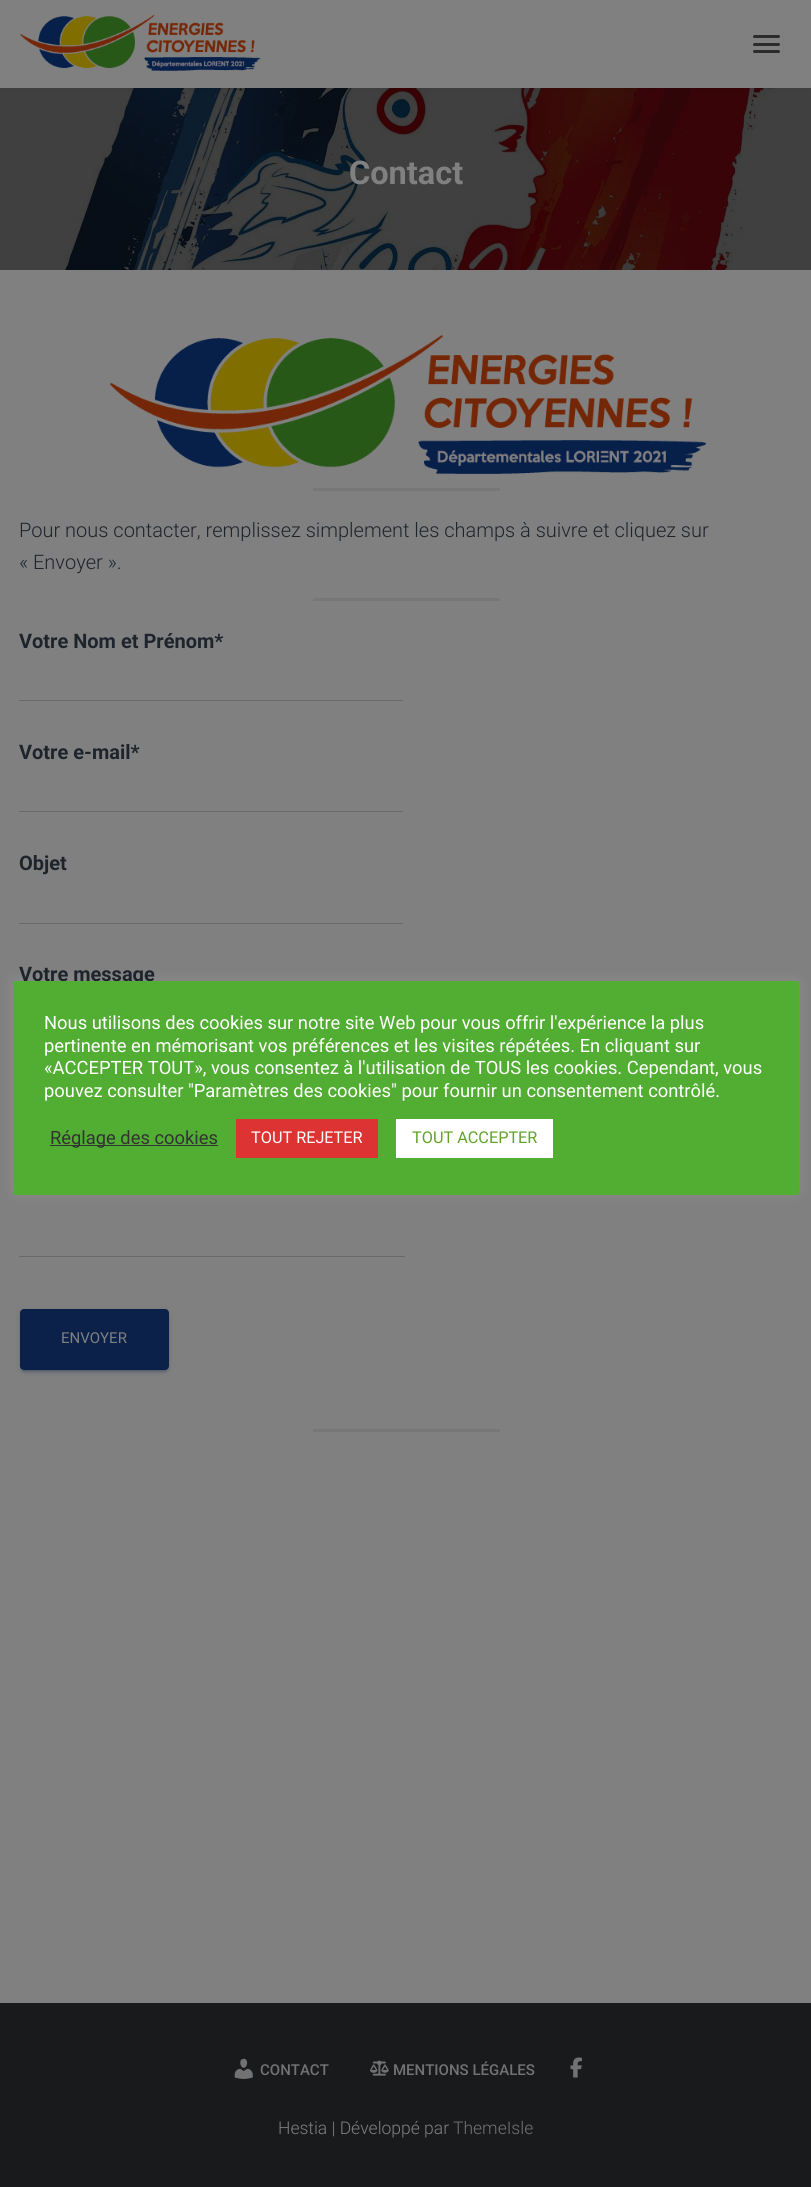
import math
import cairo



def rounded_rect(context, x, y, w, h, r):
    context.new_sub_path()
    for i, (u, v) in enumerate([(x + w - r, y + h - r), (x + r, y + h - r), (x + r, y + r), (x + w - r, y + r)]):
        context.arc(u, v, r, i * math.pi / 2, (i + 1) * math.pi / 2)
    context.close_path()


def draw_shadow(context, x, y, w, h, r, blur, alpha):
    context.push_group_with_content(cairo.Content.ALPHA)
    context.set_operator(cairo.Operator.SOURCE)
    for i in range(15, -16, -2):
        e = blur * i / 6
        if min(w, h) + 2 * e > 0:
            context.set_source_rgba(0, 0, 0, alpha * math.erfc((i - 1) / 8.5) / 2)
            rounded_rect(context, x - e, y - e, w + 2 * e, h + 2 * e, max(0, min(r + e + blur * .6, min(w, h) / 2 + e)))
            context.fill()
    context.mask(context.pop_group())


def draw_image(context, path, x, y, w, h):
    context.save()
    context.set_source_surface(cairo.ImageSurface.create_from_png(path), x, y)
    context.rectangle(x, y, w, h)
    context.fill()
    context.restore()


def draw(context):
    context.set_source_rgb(25 / 255, 26 / 255, 28 / 255)
    context.paint()
    draw_image(context, "images/2.png", 0, 88, 811, 182)
    context.set_source_rgb(0, 0, 0)
    draw_shadow(context, 8, 9, 796, 72, 0, 6, 0.42)
    context.set_source_rgb(128 / 255, 128 / 255, 128 / 255)
    context.rectangle(0, 0, 811, 88)
    context.fill()
    draw_image(context, "images/1.png", 20, 14, 241, 57)
    context.set_source_rgb(43 / 255, 43 / 255, 43 / 255)
    rounded_rect(context, 753, 35, 27, 3, 1.5)
    context.fill()
    rounded_rect(context, 753, 43, 27, 3, 1.5)
    context.fill()
    rounded_rect(context, 753, 50, 27, 3, 1.5)
    context.fill()
    context.set_source_rgb(128 / 255, 128 / 255, 128 / 255)
    context.rectangle(0, 270, 811, 1733)
    context.fill()
    draw_image(context, "images/3.png", 109, 335, 597, 139)
    context.set_source_rgb(119 / 255, 119 / 255, 119 / 255)
    context.rectangle(313, 488, 187, 3)
    context.fill()
    context.rectangle(313, 598, 187, 3)
    context.fill()
    context.set_source_rgb(105 / 255, 105 / 255, 105 / 255)
    context.rectangle(19, 700, 384, 1)
    context.fill()
    context.rectangle(19, 811, 384, 1)
    context.fill()
    context.rectangle(19, 923, 384, 1)
    context.fill()
    context.rectangle(19, 1256, 386, 1)
    context.fill()
    context.set_source_rgb(11 / 255, 33 / 255, 74 / 255)
    draw_shadow(context, 20, 1310, 149, 61, 4, 3, 0.12)
    draw_shadow(context, 23, 1315, 143, 56, 1, 0.5, 0.2)
    draw_shadow(context, 20, 1311, 149, 62, 4, 1, 0.14)
    context.set_source_rgb(11 / 255, 33 / 255, 74 / 255)
    rounded_rect(context, 20, 1309, 149, 61, 4)
    context.fill()
    context.set_source_rgb(119 / 255, 119 / 255, 119 / 255)
    context.rectangle(313, 1429, 187, 3)
    context.fill()
    draw_image(context, "images/4.png", 234, 2058, 19, 21)
    draw_image(context, "images/5.png", 370, 2060, 19, 16)
    draw_image(context, "images/6.png", 570, 2057, 12, 21)
    context.set_source_rgb(172 / 255, 171 / 255, 171 / 255)
    draw_shadow(context, 13, 980, 786, 214, 2.5, 6, 0.3)
    context.select_font_face("Roboto", cairo.FontSlant.NORMAL, cairo.FontWeight.BOLD)
    context.set_font_size(32.5)
    context.set_source_rgb(128 / 255, 128 / 255, 128 / 255)
    context.move_to(349, 184)
    context.show_text("Contact")
    context.select_font_face("Roboto Light")
    context.set_font_size(20)
    context.set_source_rgb(30 / 255, 36 / 255, 44 / 255)
    context.move_to(19, 537)
    context.show_text("Pour nous contacter, remplissez simplement les champs à suivre et cliquez sur")
    context.move_to(19, 569)
    context.show_text("« Envoyer ».")
    context.select_font_face("Roboto", cairo.FontSlant.NORMAL, cairo.FontWeight.BOLD)
    context.move_to(19, 648)
    context.show_text("Votre Nom et Prénom*")
    context.move_to(19, 759)
    context.show_text("Votre e-mail*")
    context.move_to(19, 870)
    context.show_text("Objet")
    context.move_to(19, 981)
    context.show_text("Votre message")
    context.select_font_face("Roboto")
    context.set_font_size(15)
    context.set_source_rgb(128 / 255, 128 / 255, 128 / 255)
    context.move_to(61, 1343)
    context.show_text("ENVOYER")
    context.select_font_face("Roboto Medium")
    context.set_source_rgb(113 / 255, 114 / 255, 114 / 255)
    context.move_to(260, 2075)
    context.show_text("CONTACT")
    context.move_to(393, 2075)
    context.show_text("MENTIONS LÉGALES")
    context.select_font_face("Roboto Light")
    context.set_font_size(17.5)
    context.set_source_rgb(128 / 255, 128 / 255, 128 / 255)
    context.move_to(278, 2134)
    context.show_text("Hestia | Développé par")
    context.set_source_rgb(113 / 255, 114 / 255, 114 / 255)
    context.move_to(453, 2134)
    context.show_text("ThemeIsle")
    context.set_source_rgb(81 / 255, 174 / 255, 50 / 255)
    rounded_rect(context, 13, 981, 786, 214, 2.5)
    context.fill()
    context.select_font_face("Roboto")
    context.set_font_size(18.35)
    context.set_source_rgb(1, 1, 1)
    context.move_to(44, 1029)
    context.show_text("Nous utilisons des cookies sur notre site Web pour vous offrir l'expérience la plus")
    context.move_to(44, 1052)
    context.show_text("pertinente en mémorisant vos préférences et les visites répétées. En cliquant sur")
    context.move_to(44, 1074)
    context.show_text("«ACCEPTER TOUT», vous consentez à l'utilisation de TOUS les cookies. Cependant, vous")
    context.move_to(44, 1097)
    context.show_text("pouvez consulter \"Paramètres des cookies\" pour fournir un consentement contrôlé.")
    context.set_source_rgb(51 / 255, 51 / 255, 51 / 255)
    context.rectangle(50, 1145, 168, 1)
    context.fill()
    context.move_to(50, 1144)
    context.show_text("Réglage des cookies")
    context.set_source_rgb(221 / 255, 51 / 255, 51 / 255)
    context.rectangle(236, 1119, 142, 39)
    context.fill()
    context.set_font_size(16.25)
    context.set_source_rgb(1, 1, 1)
    context.move_to(251, 1143)
    context.show_text("TOUT REJETER")
    context.rectangle(396, 1119, 157, 39)
    context.fill()
    context.set_source_rgb(97 / 255, 162 / 255, 41 / 255)
    context.move_to(412, 1143)
    context.show_text("TOUT ACCEPTER")


surface = cairo.ImageSurface(cairo.Format.RGB24, 811, 2187)
context = cairo.Context(surface)
options = cairo.FontOptions()
options.set_hint_metrics(cairo.HintMetrics.OFF)
options.set_hint_style(cairo.HintStyle.NONE)
context.set_font_options(options)
context.set_miter_limit(4)
draw(context)
surface.write_to_png("out.png")
